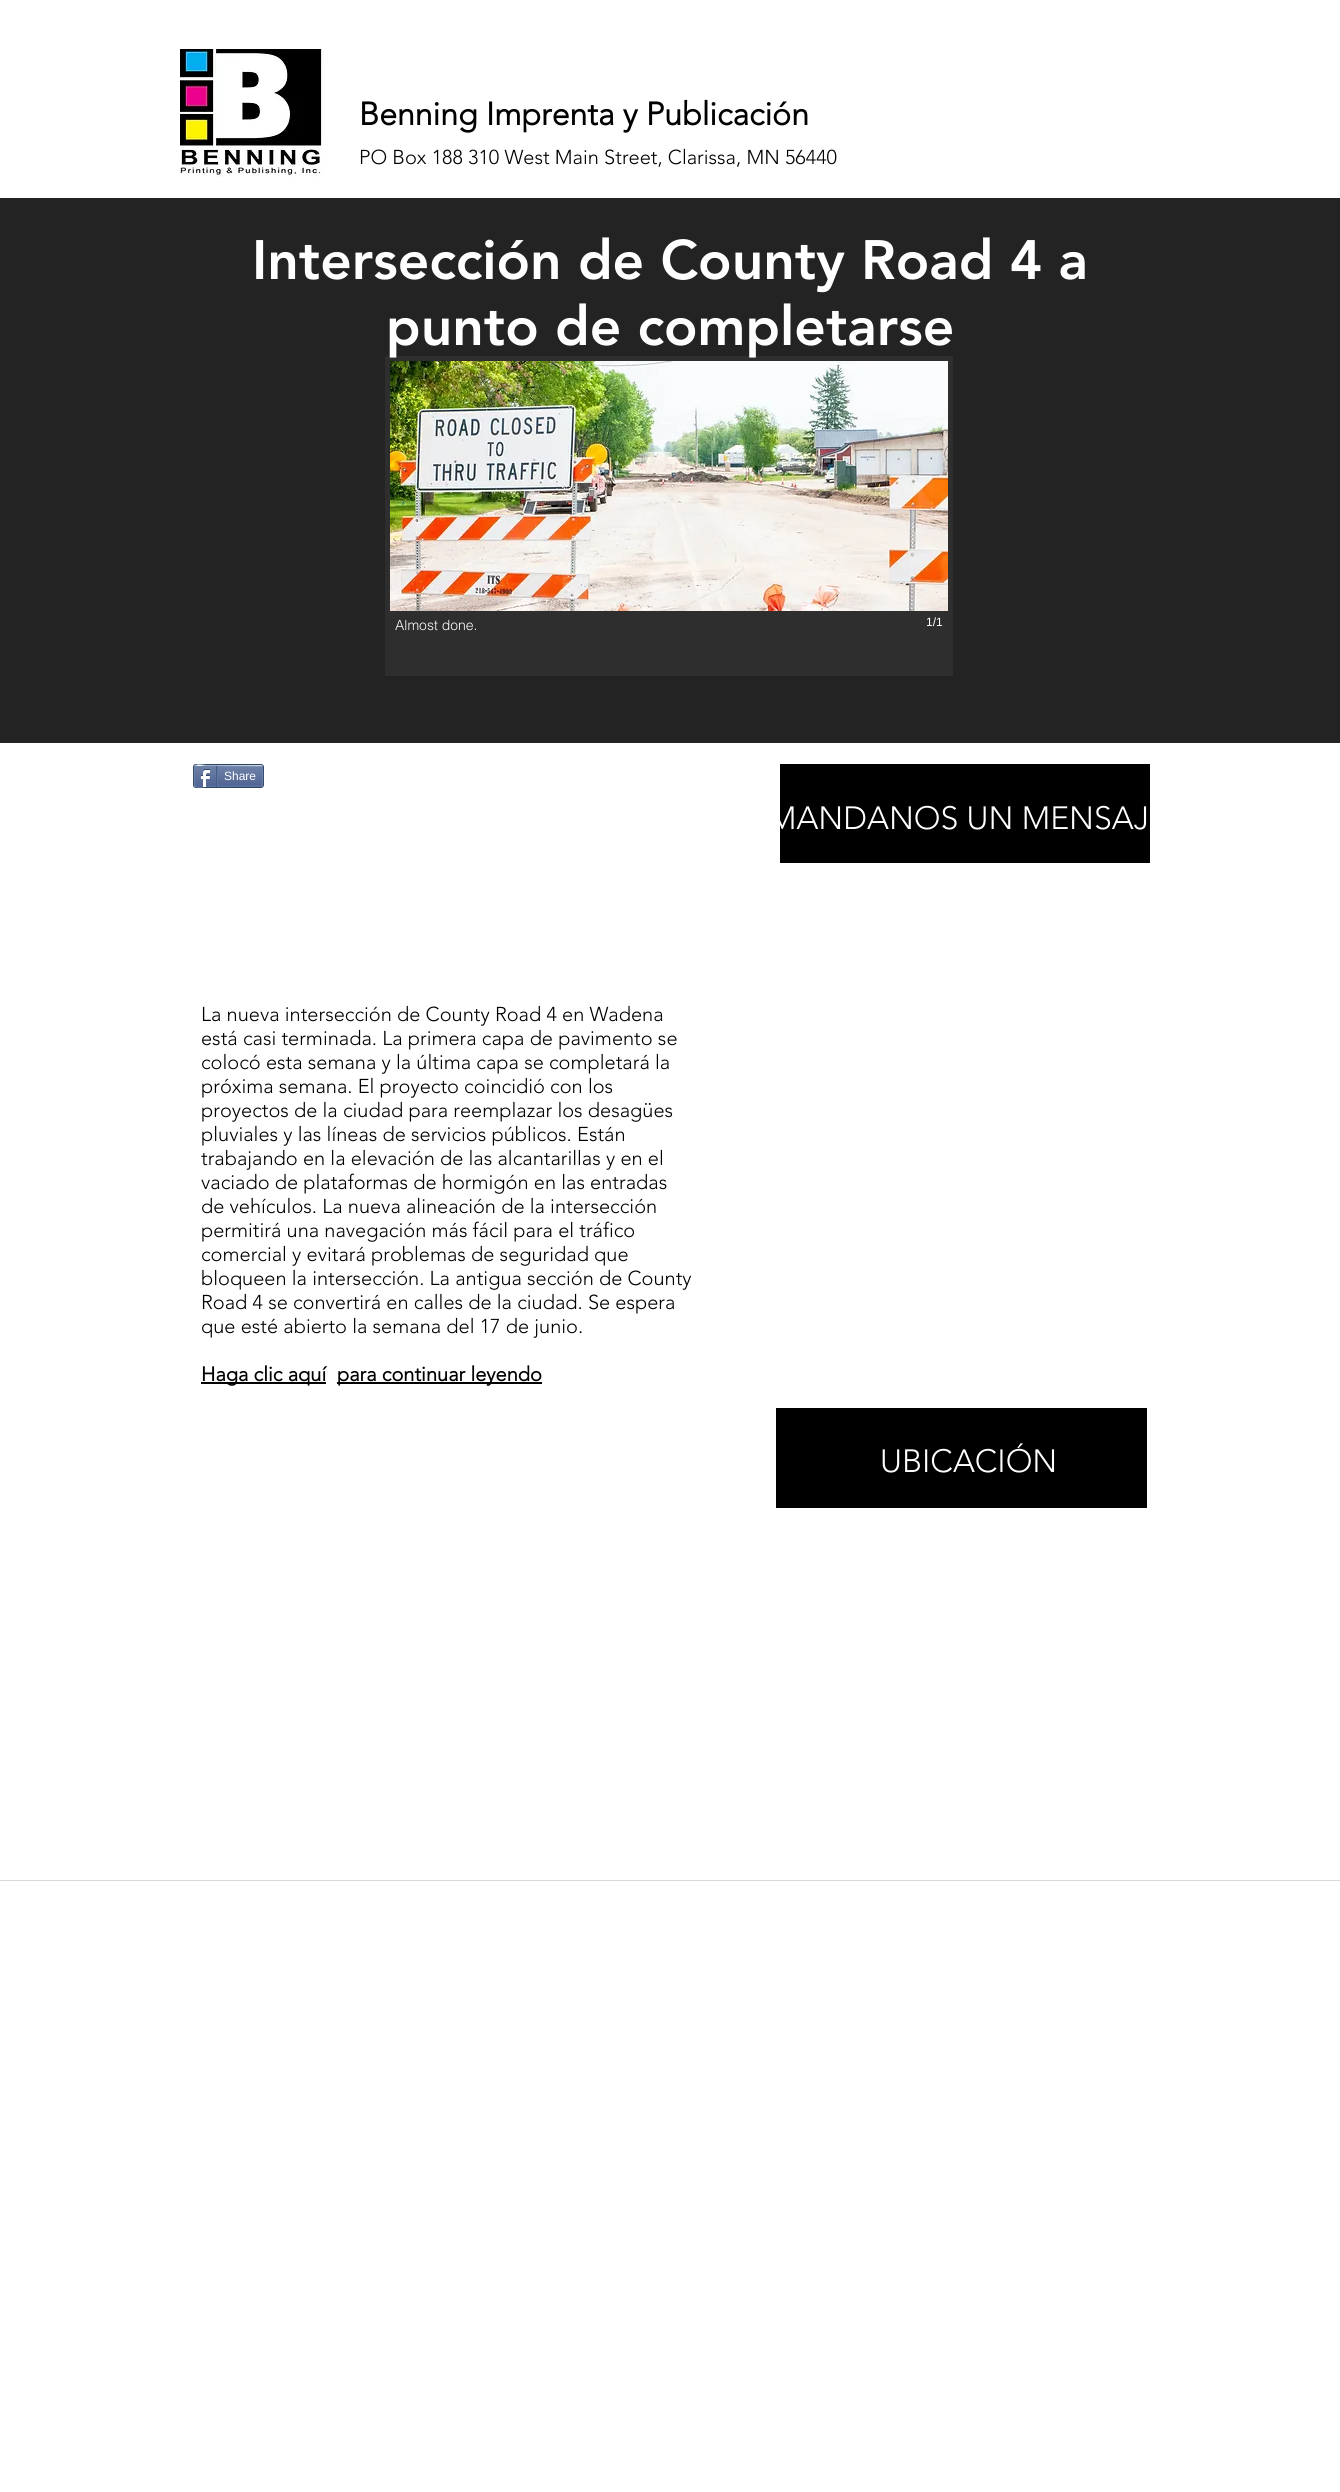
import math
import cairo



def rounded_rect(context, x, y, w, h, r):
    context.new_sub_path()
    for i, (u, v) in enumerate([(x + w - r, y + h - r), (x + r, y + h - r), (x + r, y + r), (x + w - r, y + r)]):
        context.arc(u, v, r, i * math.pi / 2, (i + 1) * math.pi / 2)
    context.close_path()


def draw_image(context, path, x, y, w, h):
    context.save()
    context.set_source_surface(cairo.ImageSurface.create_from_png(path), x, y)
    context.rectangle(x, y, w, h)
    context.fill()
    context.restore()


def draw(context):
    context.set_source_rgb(1, 1, 1)
    context.paint()
    draw_image(context, "images/1.png", 180, 49, 144, 128)
    context.set_source_rgb(36 / 255, 35 / 255, 35 / 255)
    context.rectangle(0, 198, 1340, 545)
    context.fill()
    context.set_source_rgb(47 / 255, 46 / 255, 46 / 255)
    context.rectangle(385, 356, 568, 320)
    context.fill()
    draw_image(context, "images/2.png", 390, 361, 558, 250)
    rounded_rect(context, 193.5, 764.5, 70, 23, 2.5)
    context.set_source_rgb(45 / 255, 69 / 255, 101 / 255)
    context.set_line_width(1)
    context.stroke()
    draw_image(context, "images/3.png", 194, 766, 69, 21)
    context.new_path()
    context.move_to(195, 766)
    context.curve_to(198, 763, 203, 765.5, 207, 765.5)
    context.line_to(262, 766)
    context.set_source_rgb(154 / 255, 171 / 255, 198 / 255)
    context.stroke()
    context.new_path()
    context.move_to(262, 766)
    context.curve_to(263, 766.5, 263, 785.5, 262, 786)
    context.set_source_rgb(111 / 255, 131 / 255, 173 / 255)
    context.stroke()
    context.new_path()
    context.move_to(262, 786)
    context.line_to(207, 786.5)
    context.curve_to(203, 786.5, 198, 789, 195, 786)
    context.set_source_rgb(97 / 255, 118 / 255, 163 / 255)
    context.stroke()
    context.new_path()
    context.move_to(195, 786)
    context.curve_to(194, 785.5, 194, 766.5, 195, 766)
    context.set_source_rgb(111 / 255, 131 / 255, 173 / 255)
    context.stroke()
    draw_image(context, "images/4.png", 200, 769, 10, 18)
    context.set_source_rgb(66 / 255, 94 / 255, 133 / 255)
    context.rectangle(216, 766, 1, 21)
    context.fill()
    context.set_source_rgb(97 / 255, 118 / 255, 163 / 255)
    context.rectangle(217, 766, 1, 20)
    context.fill()
    context.set_source_rgb(0, 0, 0)
    context.rectangle(780, 764, 370, 99)
    context.fill()
    context.rectangle(201, 1382, 125, 2)
    context.fill()
    context.rectangle(337, 1382, 205, 2)
    context.fill()
    context.rectangle(776, 1408, 371, 100)
    context.fill()
    context.set_source_rgb(217 / 255, 217 / 255, 217 / 255)
    context.rectangle(0, 1880, 1340, 1)
    context.fill()
    context.select_font_face("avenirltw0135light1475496", cairo.FontSlant.NORMAL, cairo.FontWeight.BOLD)
    context.set_font_size(32)
    context.set_source_rgb(0, 0, 0)
    context.move_to(359, 125)
    context.show_text("Benning Imprenta y Publicación")
    context.select_font_face("avenirltw0135light1475496 Light")
    context.set_font_size(20)
    context.move_to(359, 164)
    context.show_text("PO Box 188 310 West Main Street, Clarissa, MN 56440")
    context.select_font_face("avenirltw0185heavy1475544 Black")
    context.set_font_size(55)
    context.set_source_rgb(1, 1, 1)
    context.move_to(252, 279)
    context.show_text("Intersección de County Road 4 a")
    context.move_to(386, 345)
    context.show_text("punto de completarse")
    context.select_font_face("helvetica Light")
    context.set_font_size(14)
    context.move_to(395, 630)
    context.show_text("Almost done.")
    context.select_font_face("Liberation Sans")
    context.set_font_size(12)
    context.move_to(926, 626)
    context.show_text("1/1")
    context.move_to(224, 780)
    context.show_text("Share")
    context.select_font_face("avenirltw0135light1475496 Light")
    context.set_font_size(32)
    context.move_to(768, 829)
    context.show_text("MANDANOS UN MENSAJ")
    context.set_font_size(20)
    context.set_source_rgb(0, 0, 0)
    context.move_to(201, 1021)
    context.show_text("La nueva intersección de County Road 4 en Wadena")
    context.move_to(201, 1045)
    context.show_text("está casi terminada. La primera capa de pavimento se")
    context.move_to(201, 1069)
    context.show_text("colocó esta semana y la última capa se completará la")
    context.move_to(201, 1093)
    context.show_text("próxima semana. El proyecto coincidió con los")
    context.move_to(201, 1117)
    context.show_text("proyectos de la ciudad para reemplazar los desagües")
    context.move_to(201, 1141)
    context.show_text("pluviales y las líneas de servicios públicos. Están")
    context.move_to(201, 1165)
    context.show_text("trabajando en la elevación de las alcantarillas y en el")
    context.move_to(201, 1189)
    context.show_text("vaciado de plataformas de hormigón en las entradas")
    context.move_to(201, 1213)
    context.show_text("de vehículos. La nueva alineación de la intersección")
    context.move_to(201, 1237)
    context.show_text("permitirá una navegación más fácil para el tráfico")
    context.move_to(201, 1261)
    context.show_text("comercial y evitará problemas de seguridad que")
    context.move_to(201, 1285)
    context.show_text("bloqueen la intersección. La antigua sección de County")
    context.move_to(201, 1309)
    context.show_text("Road 4 se convertirá en calles de la ciudad. Se espera")
    context.move_to(201, 1333)
    context.show_text("que esté abierto la semana del 17 de junio.")
    context.select_font_face("avenirltw0135light1475496", cairo.FontSlant.NORMAL, cairo.FontWeight.BOLD)
    context.move_to(201, 1381)
    context.show_text("Haga clic aquí")
    context.move_to(337, 1381)
    context.show_text("para continuar leyendo")
    context.select_font_face("avenirltw0135light1475496 Light")
    context.set_font_size(32)
    context.set_source_rgb(1, 1, 1)
    context.move_to(880, 1472)
    context.show_text("UBICACIÓN")


surface = cairo.ImageSurface(cairo.Format.RGB24, 1340, 2492)
context = cairo.Context(surface)
options = cairo.FontOptions()
options.set_hint_metrics(cairo.HintMetrics.OFF)
options.set_hint_style(cairo.HintStyle.NONE)
context.set_font_options(options)
context.set_miter_limit(4)
draw(context)
surface.write_to_png("out.png")
